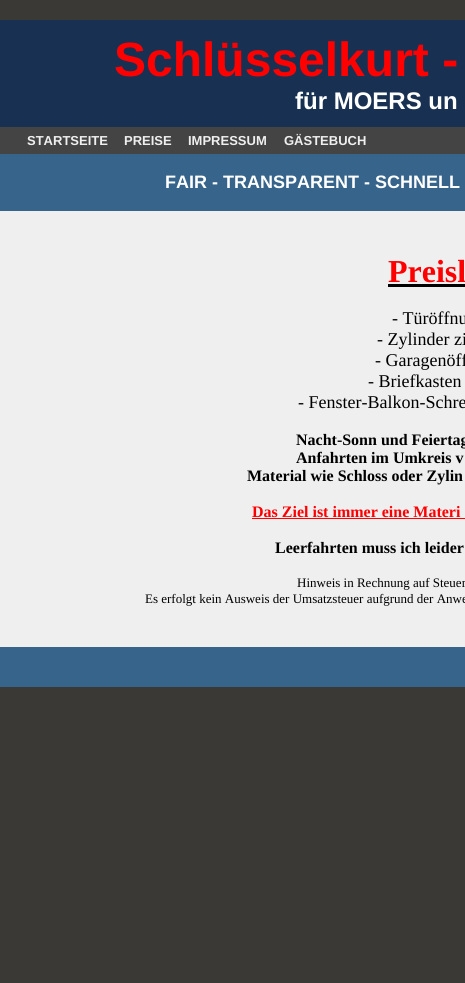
import math
import cairo



def draw(context):
    context.set_source_rgb(59 / 255, 57 / 255, 53 / 255)
    context.paint()
    context.set_source_rgb(24 / 255, 49 / 255, 82 / 255)
    context.rectangle(0, 20, 465, 107)
    context.fill()
    context.set_source_rgb(68 / 255, 68 / 255, 68 / 255)
    context.rectangle(0, 127, 465, 27)
    context.fill()
    context.set_source_rgb(54 / 255, 100 / 255, 139 / 255)
    context.rectangle(0, 154, 465, 57)
    context.fill()
    context.set_source_rgb(239 / 255, 239 / 255, 239 / 255)
    context.rectangle(0, 211, 465, 436)
    context.fill()
    context.set_source_rgb(0, 0, 0)
    context.rectangle(388, 284, 77, 3)
    context.fill()
    context.set_source_rgb(1, 0, 0)
    context.rectangle(252, 518, 213, 1)
    context.fill()
    context.set_source_rgb(54 / 255, 100 / 255, 139 / 255)
    context.rectangle(0, 647, 465, 40)
    context.fill()
    context.select_font_face("Liberation Sans", cairo.FontSlant.NORMAL, cairo.FontWeight.BOLD)
    context.set_font_size(48)
    context.set_source_rgb(1, 0, 0)
    context.move_to(114, 76)
    context.show_text("Schlüsselkurt -")
    context.set_font_size(24)
    context.set_source_rgb(1, 1, 1)
    context.move_to(295, 109)
    context.show_text("für MOERS un")
    context.set_font_size(13)
    context.set_source_rgb(239 / 255, 239 / 255, 239 / 255)
    context.move_to(27, 145)
    context.show_text("STARTSEITE")
    context.move_to(124, 145)
    context.show_text("PREISE")
    context.move_to(188, 145)
    context.show_text("IMPRESSUM")
    context.move_to(284, 145)
    context.show_text("GÄSTEBUCH")
    context.set_font_size(18)
    context.set_source_rgb(1, 1, 1)
    context.move_to(165, 188)
    context.show_text("FAIR - TRANSPARENT - SCHNELL")
    context.select_font_face("Liberation Serif", cairo.FontSlant.NORMAL, cairo.FontWeight.BOLD)
    context.set_font_size(32)
    context.set_source_rgb(1, 0, 0)
    context.move_to(388, 282)
    context.show_text("Preisl")
    context.select_font_face("Liberation Serif")
    context.set_font_size(18)
    context.set_source_rgb(0, 0, 0)
    context.move_to(392, 324)
    context.show_text("- Türöffnu")
    context.move_to(377, 345)
    context.show_text("- Zylinder zi")
    context.move_to(375, 366)
    context.show_text("- Garagenöff")
    context.move_to(368, 387)
    context.show_text("- Briefkasten")
    context.move_to(298, 408)
    context.show_text("- Fenster-Balkon-Schre")
    context.select_font_face("Liberation Serif", cairo.FontSlant.NORMAL, cairo.FontWeight.BOLD)
    context.set_font_size(16)
    context.move_to(296, 445)
    context.show_text("Nacht-Sonn und Feiertag")
    context.move_to(296, 463)
    context.show_text("Anfahrten im Umkreis v")
    context.move_to(247, 481)
    context.show_text("Material wie Schloss oder Zylin")
    context.set_source_rgb(1, 0, 0)
    context.move_to(252, 517)
    context.show_text("Das Ziel ist immer eine Materi")
    context.set_source_rgb(0, 0, 0)
    context.move_to(275, 553)
    context.show_text("Leerfahrten muss ich leider")
    context.select_font_face("Liberation Serif")
    context.set_font_size(13)
    context.move_to(297, 587)
    context.show_text("Hinweis in Rechnung auf Steuer")
    context.move_to(145, 603)
    context.show_text("Es erfolgt kein Ausweis der Umsatzsteuer aufgrund der Anwe")


surface = cairo.ImageSurface(cairo.Format.RGB24, 465, 983)
context = cairo.Context(surface)
options = cairo.FontOptions()
options.set_hint_metrics(cairo.HintMetrics.OFF)
options.set_hint_style(cairo.HintStyle.NONE)
context.set_font_options(options)
context.set_miter_limit(4)
draw(context)
surface.write_to_png("out.png")
